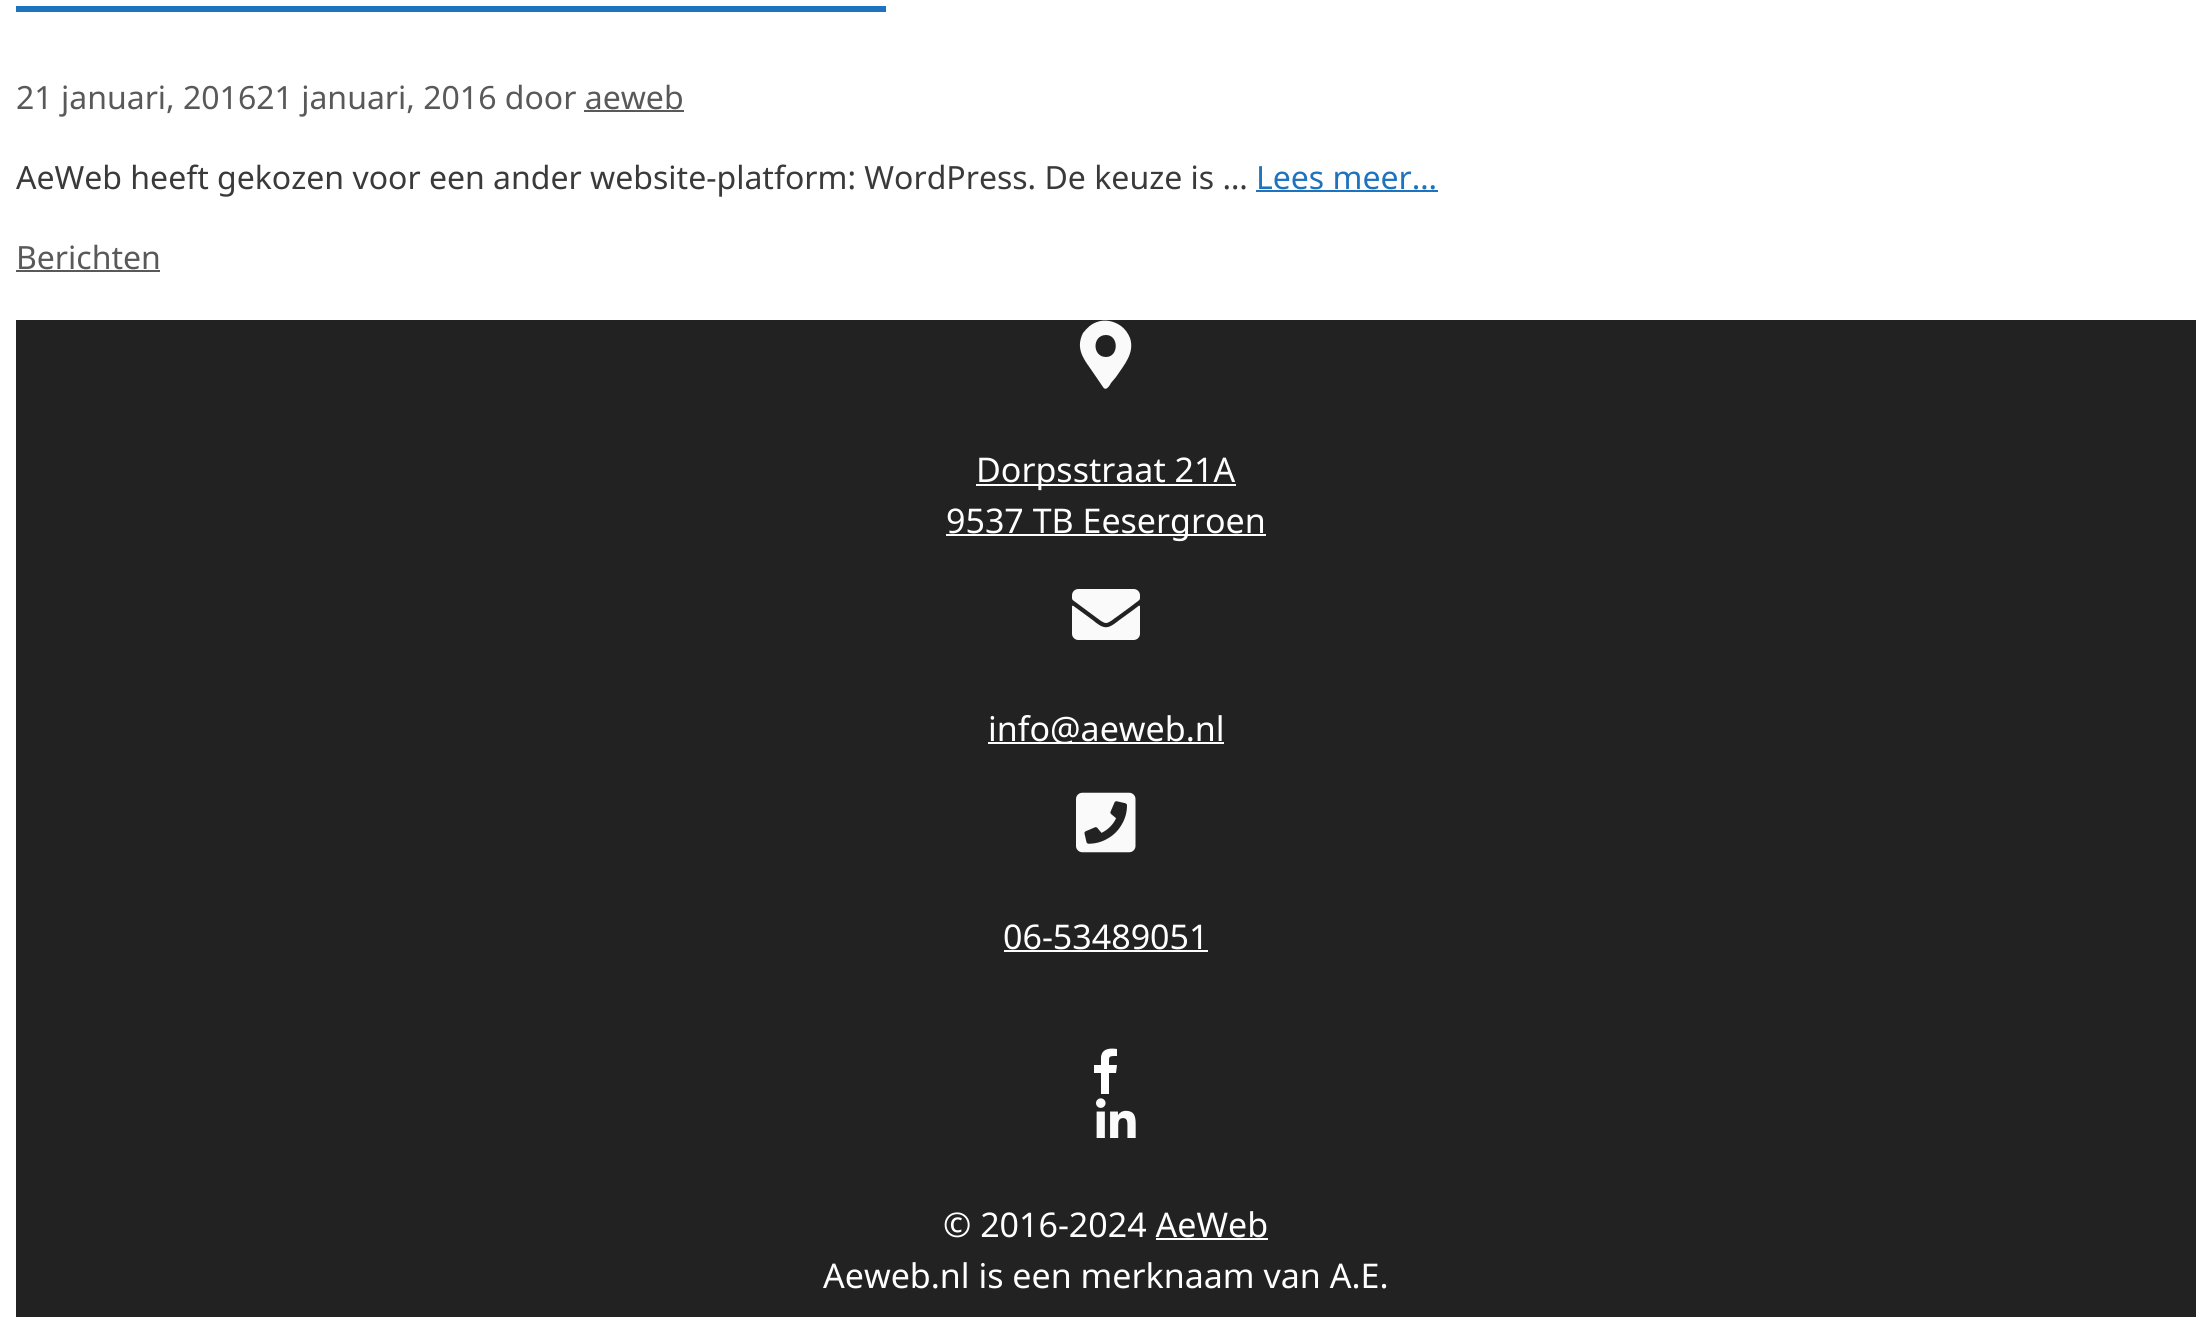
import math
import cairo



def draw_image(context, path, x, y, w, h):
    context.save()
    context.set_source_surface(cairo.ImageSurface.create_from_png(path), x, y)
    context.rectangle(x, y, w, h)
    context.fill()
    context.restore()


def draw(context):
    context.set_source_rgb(1, 1, 1)
    context.paint()
    context.set_source_rgb(30 / 255, 115 / 255, 190 / 255)
    context.rectangle(16, 6, 870, 6)
    context.fill()
    context.set_source_rgb(89 / 255, 89 / 255, 89 / 255)
    context.rectangle(584, 110, 100, 2)
    context.fill()
    context.set_source_rgb(30 / 255, 115 / 255, 190 / 255)
    context.rectangle(1256, 190, 182, 2)
    context.fill()
    context.set_source_rgb(89 / 255, 89 / 255, 89 / 255)
    context.rectangle(16, 270, 144, 2)
    context.fill()
    context.set_source_rgb(34 / 255, 34 / 255, 34 / 255)
    context.rectangle(16, 320, 2180, 997)
    context.fill()
    context.set_source_rgb(250 / 255, 250 / 255, 250 / 255)
    context.new_path()
    context.move_to(1103, 387)
    context.line_to(1090, 368)
    context.curve_to(1082, 357, 1076, 347, 1083, 333)
    context.curve_to(1087, 328, 1091, 324, 1097, 322)
    context.curve_to(1105, 319, 1114, 321, 1121, 326)
    context.curve_to(1125, 329, 1128, 333, 1130, 338)
    context.curve_to(1135, 353, 1124, 365, 1116, 377)
    context.line_to(1111, 383)
    context.curve_to(1110, 385, 1106, 392, 1103, 387)
    context.close_path()
    context.move_to(1106, 357)
    context.curve_to(1119, 357, 1119, 335, 1106, 335)
    context.curve_to(1092, 335, 1092, 357, 1106, 357)
    context.close_path()
    context.fill()
    context.set_source_rgb(1, 1, 1)
    context.rectangle(976, 484, 260, 2)
    context.fill()
    context.rectangle(946, 534, 320, 2)
    context.fill()
    draw_image(context, "images/1.png", 1072, 589, 68, 51)
    context.rectangle(988, 742, 236, 2)
    context.fill()
    draw_image(context, "images/2.png", 1076, 792, 60, 61)
    context.rectangle(1004, 950, 204, 2)
    context.fill()
    context.new_path()
    context.move_to(1101, 1094)
    context.line_to(1101, 1073)
    context.line_to(1094, 1073)
    context.line_to(1094, 1065)
    context.line_to(1101, 1065)
    context.line_to(1101, 1057)
    context.curve_to(1102, 1048, 1111, 1048, 1117, 1049)
    context.line_to(1117, 1056)
    context.curve_to(1108, 1056, 1109, 1056, 1109, 1065)
    context.line_to(1117, 1065)
    context.line_to(1116, 1073)
    context.line_to(1109, 1073)
    context.line_to(1109, 1094)
    context.close_path()
    context.fill()
    draw_image(context, "images/3.png", 1096, 1098, 40, 40)
    context.rectangle(1156, 1238, 112, 2)
    context.fill()
    context.select_font_face("Noto Sans")
    context.set_font_size(32)
    context.set_source_rgb(89 / 255, 89 / 255, 89 / 255)
    context.move_to(16, 109)
    context.show_text("21 januari, 201621 januari, 2016 door aeweb")
    context.set_source_rgb(58 / 255, 58 / 255, 58 / 255)
    context.move_to(16, 189)
    context.show_text("AeWeb heeft gekozen voor een ander website-platform: WordPress. De keuze is …")
    context.set_source_rgb(30 / 255, 115 / 255, 190 / 255)
    context.move_to(1256, 189)
    context.show_text("Lees meer…")
    context.set_source_rgb(89 / 255, 89 / 255, 89 / 255)
    context.move_to(16, 269)
    context.show_text("Berichten")
    context.set_font_size(34)
    context.set_source_rgb(1, 1, 1)
    context.move_to(976, 482)
    context.show_text("Dorpsstraat 21A")
    context.move_to(946, 533)
    context.show_text("9537 TB Eesergroen")
    context.move_to(988, 741)
    context.show_text("info@aeweb.nl")
    context.move_to(1003, 949)
    context.show_text("06-53489051")
    context.move_to(943, 1237)
    context.show_text("© 2016-2024 AeWeb")
    context.move_to(823, 1288)
    context.show_text("Aeweb.nl is een merknaam van A.E.")


surface = cairo.ImageSurface(cairo.Format.RGB24, 2211, 1317)
context = cairo.Context(surface)
options = cairo.FontOptions()
options.set_hint_metrics(cairo.HintMetrics.OFF)
options.set_hint_style(cairo.HintStyle.NONE)
context.set_font_options(options)
context.set_miter_limit(4)
draw(context)
surface.write_to_png("out.png")
